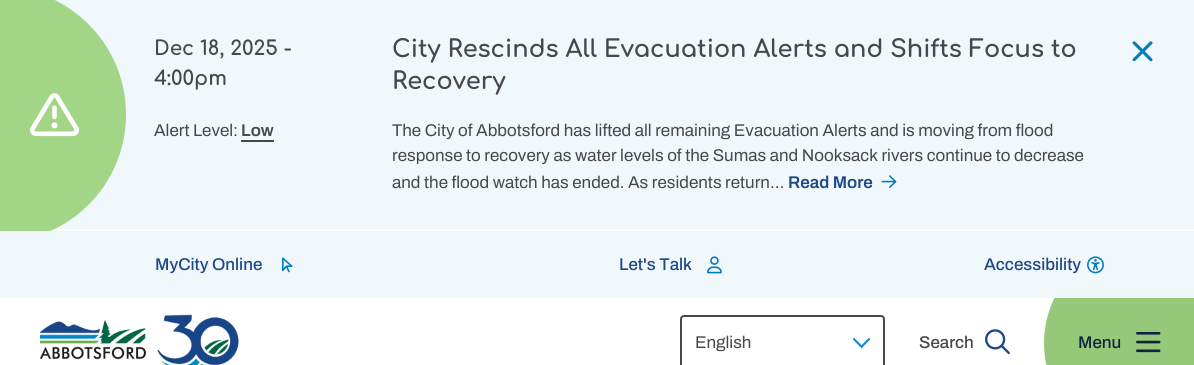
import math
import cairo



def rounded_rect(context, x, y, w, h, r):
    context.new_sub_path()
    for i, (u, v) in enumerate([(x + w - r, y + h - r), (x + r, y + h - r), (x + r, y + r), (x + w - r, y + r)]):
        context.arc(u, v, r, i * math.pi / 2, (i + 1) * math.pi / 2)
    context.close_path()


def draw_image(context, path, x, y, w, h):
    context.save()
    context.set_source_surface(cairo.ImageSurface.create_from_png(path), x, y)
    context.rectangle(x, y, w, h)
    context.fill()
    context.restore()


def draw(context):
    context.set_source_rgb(1, 1, 1)
    context.paint()
    context.set_source_rgb(240 / 255, 248 / 255, 252 / 255)
    context.rectangle(54, 0, 1140, 229)
    context.fill()
    context.set_source_rgb(163 / 255, 213 / 255, 135 / 255)
    rounded_rect(context, -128, -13, 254, 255, 127.5)
    context.fill()
    draw_image(context, "images/1.png", 30, 93, 49, 44)
    context.set_source_rgb(72 / 255, 72 / 255, 72 / 255)
    context.rectangle(241, 140, 33, 2)
    context.fill()
    draw_image(context, "images/2.png", 881, 175, 16, 13)
    draw_image(context, "images/3.png", 1132, 41, 21, 21)
    context.set_source_rgb(150 / 255, 200 / 255, 122 / 255)
    context.arc(1146, 343, 102, 0, 2 * math.pi)
    context.fill()
    context.set_source_rgb(240 / 255, 248 / 255, 252 / 255)
    context.rectangle(0, 231, 1194, 67)
    context.fill()
    draw_image(context, "images/4.png", 282, 257, 11, 16)
    draw_image(context, "images/5.png", 707, 256, 15, 18)
    draw_image(context, "images/6.png", 1087, 256, 17, 18)
    draw_image(context, "images/7.png", 40, 314, 199, 51)
    draw_image(context, "images/8.png", 853, 338, 17, 10)
    rounded_rect(context, 681, 316, 203, 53, 3)
    context.set_source_rgb(72 / 255, 72 / 255, 72 / 255)
    context.stroke()
    draw_image(context, "images/9.png", 985, 329, 25, 26)
    draw_image(context, "images/10.png", 1136, 332, 25, 21)
    context.select_font_face("Comfortaa", cairo.FontSlant.NORMAL, cairo.FontWeight.BOLD)
    context.set_font_size(20)
    context.move_to(154, 55)
    context.show_text("Dec 18, 2025 -")
    context.move_to(154, 85)
    context.show_text("4:00pm")
    context.set_font_size(24)
    context.move_to(392, 57)
    context.show_text("City Rescinds All Evacuation Alerts and Shifts Focus to")
    context.move_to(392, 89)
    context.show_text("Recovery")
    context.select_font_face("Archivo")
    context.set_font_size(17)
    context.move_to(154, 136)
    context.show_text("Alert Level:")
    context.select_font_face("Archivo SemiBold")
    context.move_to(241, 136)
    context.show_text("Low")
    context.select_font_face("Archivo")
    context.move_to(392, 136)
    context.show_text("The City of Abbotsford has lifted all remaining Evacuation Alerts and is moving from flood")
    context.move_to(392, 161)
    context.show_text("response to recovery as water levels of the Sumas and Nooksack rivers continue to decrease")
    context.move_to(392, 188)
    context.show_text("and the flood watch has ended. As residents return…")
    context.select_font_face("Archivo SemiBold")
    context.set_source_rgb(32 / 255, 72 / 255, 134 / 255)
    context.move_to(788, 188)
    context.show_text("Read More")
    context.select_font_face("Archivo Medium")
    context.move_to(155, 270)
    context.show_text("MyCity Online")
    context.move_to(619, 270)
    context.show_text("Let's Talk")
    context.move_to(984, 270)
    context.show_text("Accessibility")
    context.select_font_face("Archivo")
    context.set_source_rgb(72 / 255, 72 / 255, 72 / 255)
    context.move_to(695, 348)
    context.show_text("English")
    context.select_font_face("Archivo Medium")
    context.move_to(919, 348)
    context.show_text("Search")
    context.set_source_rgb(16 / 255, 36 / 255, 66 / 255)
    context.move_to(1078, 348)
    context.show_text("Menu")


surface = cairo.ImageSurface(cairo.Format.RGB24, 1194, 365)
context = cairo.Context(surface)
options = cairo.FontOptions()
options.set_hint_metrics(cairo.HintMetrics.OFF)
options.set_hint_style(cairo.HintStyle.NONE)
context.set_font_options(options)
context.set_miter_limit(4)
draw(context)
surface.write_to_png("out.png")
